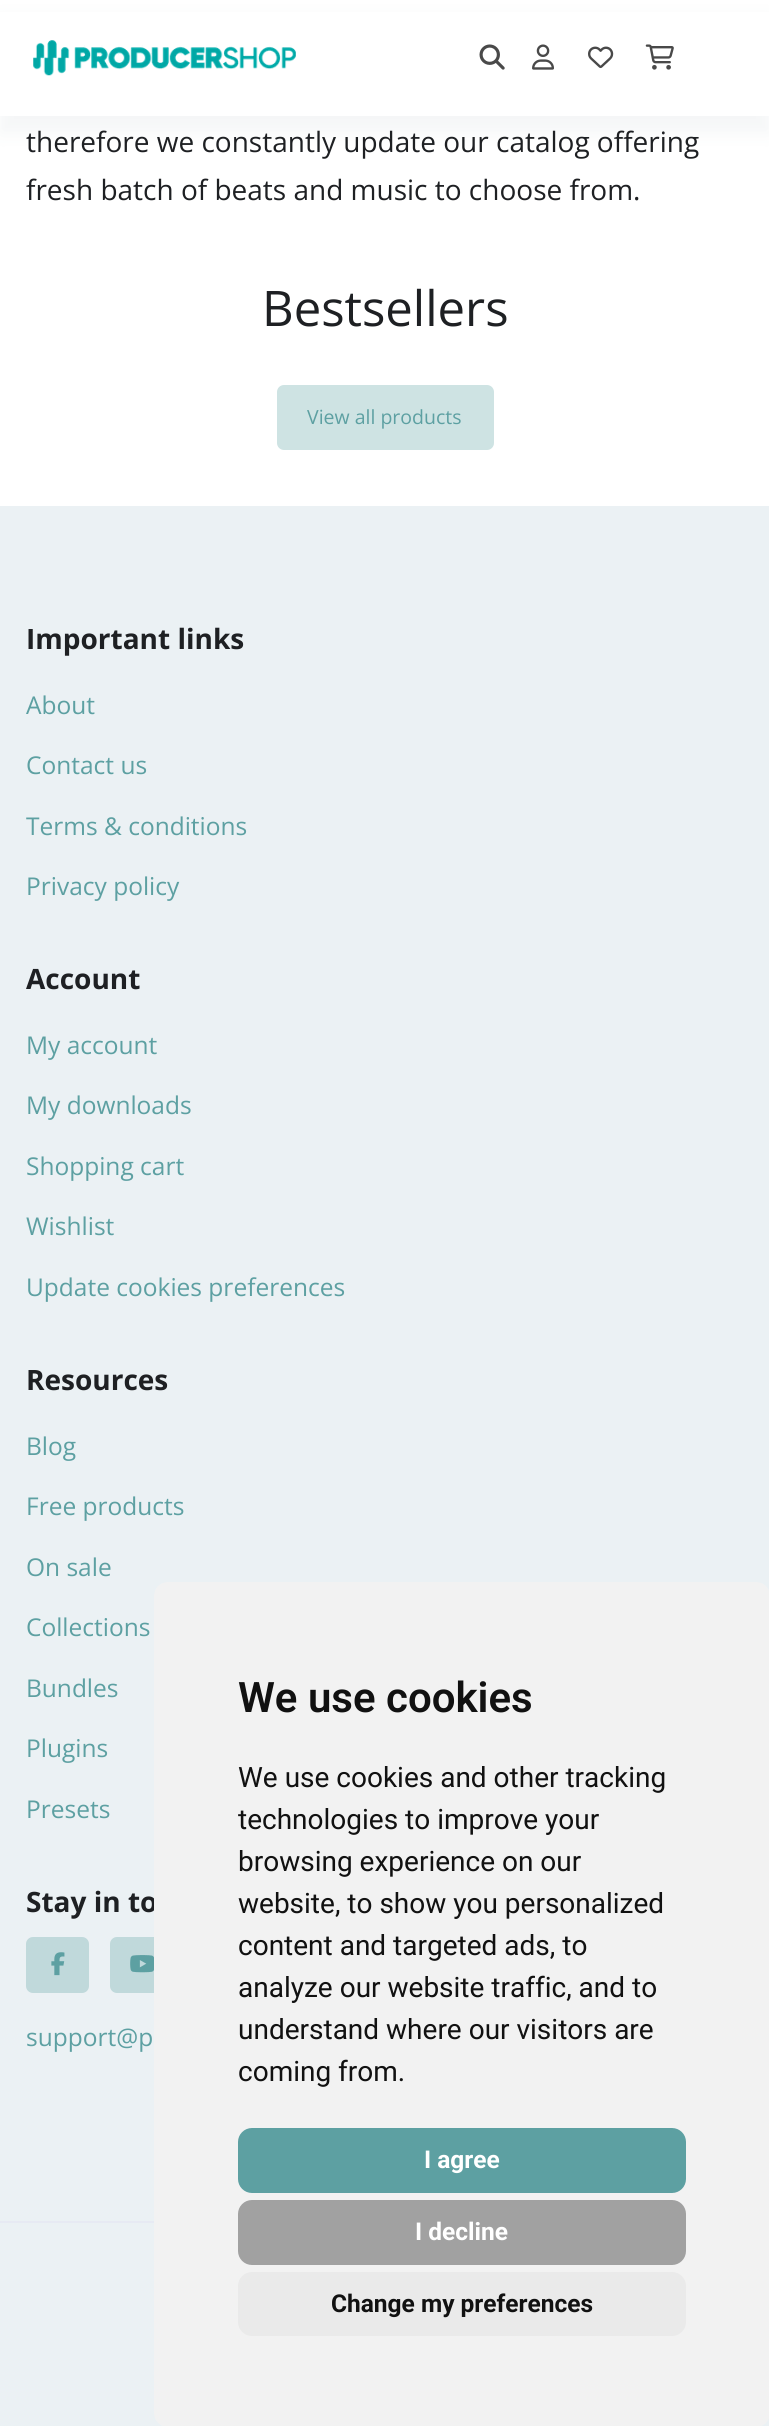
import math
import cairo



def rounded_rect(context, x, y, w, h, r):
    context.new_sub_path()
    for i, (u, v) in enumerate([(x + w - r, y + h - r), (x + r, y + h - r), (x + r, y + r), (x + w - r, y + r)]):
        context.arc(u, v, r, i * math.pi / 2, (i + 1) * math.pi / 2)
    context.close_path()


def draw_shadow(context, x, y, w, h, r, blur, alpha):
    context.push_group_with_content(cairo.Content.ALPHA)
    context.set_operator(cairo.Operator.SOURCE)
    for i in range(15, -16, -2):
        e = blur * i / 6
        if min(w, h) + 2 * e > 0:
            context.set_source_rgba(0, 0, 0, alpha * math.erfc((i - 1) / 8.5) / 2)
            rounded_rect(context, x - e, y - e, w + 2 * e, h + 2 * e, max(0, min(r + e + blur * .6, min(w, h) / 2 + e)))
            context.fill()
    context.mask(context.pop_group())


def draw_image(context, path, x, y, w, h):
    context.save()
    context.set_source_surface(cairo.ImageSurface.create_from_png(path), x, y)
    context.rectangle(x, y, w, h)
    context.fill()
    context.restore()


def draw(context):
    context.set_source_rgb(1, 1, 1)
    context.paint()
    context.set_source_rgb(151 / 255, 164 / 255, 175 / 255)
    draw_shadow(context, 0, 18, 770, 115, 0, 9, 0.1)
    context.set_source_rgb(1, 1, 1)
    context.rectangle(0, 12, 769, 104)
    context.fill()
    draw_image(context, "images/1.png", 33, 40, 263, 36)
    draw_image(context, "images/2.png", 479, 44, 26, 26)
    draw_image(context, "images/3.png", 532, 44, 22, 26)
    draw_image(context, "images/4.png", 588, 46, 26, 23)
    draw_image(context, "images/5.png", 645, 44, 29, 26)
    context.set_source_rgb(206 / 255, 227 / 255, 227 / 255)
    rounded_rect(context, 277, 385, 217, 65, 7)
    context.fill()
    context.set_source_rgb(235 / 255, 241 / 255, 244 / 255)
    context.rectangle(0, 506, 769, 1920)
    context.fill()
    context.set_source_rgb(231 / 255, 234 / 255, 243 / 255)
    context.rectangle(0, 2221, 154, 2)
    context.fill()
    context.set_source_rgb(192 / 255, 217 / 255, 219 / 255)
    rounded_rect(context, 26, 1937, 63, 56, 7)
    context.fill()
    draw_image(context, "images/6.png", 51, 1952, 14, 24)
    rounded_rect(context, 110, 1937, 63, 56, 7)
    context.fill()
    draw_image(context, "images/7.png", 130, 1955, 24, 18)
    context.select_font_face("Open Sans")
    context.set_font_size(28)
    context.set_source_rgb(30 / 255, 32 / 255, 35 / 255)
    context.move_to(26, 152)
    context.show_text("therefore we constantly update our catalog offering")
    context.move_to(26, 200)
    context.show_text("fresh batch of beats and music to choose from.")
    context.set_font_size(49)
    context.move_to(262, 326)
    context.show_text("Bestsellers")
    context.set_font_size(19.5)
    context.set_source_rgb(93 / 255, 160 / 255, 162 / 255)
    context.move_to(307, 424)
    context.show_text("View all products")
    context.select_font_face("Open Sans", cairo.FontSlant.NORMAL, cairo.FontWeight.BOLD)
    context.set_font_size(28)
    context.set_source_rgb(30 / 255, 32 / 255, 35 / 255)
    context.move_to(26, 649)
    context.show_text("Important links")
    context.select_font_face("Open Sans")
    context.set_font_size(24.5)
    context.set_source_rgb(93 / 255, 160 / 255, 162 / 255)
    context.move_to(26, 714)
    context.show_text("About")
    context.move_to(26, 774)
    context.show_text("Contact us")
    context.move_to(26, 835)
    context.show_text("Terms & conditions")
    context.move_to(26, 895)
    context.show_text("Privacy policy")
    context.select_font_face("Open Sans", cairo.FontSlant.NORMAL, cairo.FontWeight.BOLD)
    context.set_font_size(28)
    context.set_source_rgb(30 / 255, 32 / 255, 35 / 255)
    context.move_to(26, 989)
    context.show_text("Account")
    context.select_font_face("Open Sans")
    context.set_font_size(24.5)
    context.set_source_rgb(93 / 255, 160 / 255, 162 / 255)
    context.move_to(26, 1054)
    context.show_text("My account")
    context.move_to(26, 1114)
    context.show_text("My downloads")
    context.move_to(26, 1175)
    context.show_text("Shopping cart")
    context.move_to(26, 1235)
    context.show_text("Wishlist")
    context.move_to(26, 1296)
    context.show_text("Update cookies preferences")
    context.select_font_face("Open Sans", cairo.FontSlant.NORMAL, cairo.FontWeight.BOLD)
    context.set_font_size(28)
    context.set_source_rgb(30 / 255, 32 / 255, 35 / 255)
    context.move_to(26, 1390)
    context.show_text("Resources")
    context.select_font_face("Open Sans")
    context.set_font_size(24.5)
    context.set_source_rgb(93 / 255, 160 / 255, 162 / 255)
    context.move_to(26, 1455)
    context.show_text("Blog")
    context.move_to(26, 1515)
    context.show_text("Free products")
    context.move_to(26, 1576)
    context.show_text("On sale")
    context.move_to(26, 1636)
    context.show_text("Collections")
    context.move_to(26, 1697)
    context.show_text("Bundles")
    context.move_to(26, 1757)
    context.show_text("Plugins")
    context.move_to(26, 1818)
    context.show_text("Presets")
    context.select_font_face("Open Sans", cairo.FontSlant.NORMAL, cairo.FontWeight.BOLD)
    context.set_font_size(28)
    context.set_source_rgb(30 / 255, 32 / 255, 35 / 255)
    context.move_to(26, 1912)
    context.show_text("Stay in to")
    context.select_font_face("Open Sans")
    context.set_font_size(24.5)
    context.set_source_rgb(93 / 255, 160 / 255, 162 / 255)
    context.move_to(26, 2046)
    context.show_text("support@p")
    context.set_source_rgb(242 / 255, 242 / 255, 242 / 255)
    rounded_rect(context, 154, 1582, 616, 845, 14)
    context.fill()
    context.select_font_face("Roboto SemiBold")
    context.set_font_size(42)
    context.set_source_rgb(17 / 255, 17 / 255, 17 / 255)
    context.move_to(238, 1712)
    context.show_text("We use cookies")
    context.select_font_face("Roboto")
    context.set_font_size(28)
    context.move_to(238, 1787)
    context.show_text("We use cookies and other tracking")
    context.move_to(238, 1829)
    context.show_text("technologies to improve your")
    context.move_to(238, 1871)
    context.show_text("browsing experience on our")
    context.move_to(238, 1913)
    context.show_text("website, to show you personalized")
    context.move_to(238, 1955)
    context.show_text("content and targeted ads, to")
    context.move_to(238, 1997)
    context.show_text("analyze our website traffic, and to")
    context.move_to(238, 2039)
    context.show_text("understand where our visitors are")
    context.move_to(238, 2081)
    context.show_text("coming from.")
    context.set_source_rgb(93 / 255, 160 / 255, 162 / 255)
    rounded_rect(context, 238, 2128, 448, 65, 14)
    context.fill()
    context.select_font_face("Roboto", cairo.FontSlant.NORMAL, cairo.FontWeight.BOLD)
    context.set_font_size(24.5)
    context.set_source_rgb(1, 1, 1)
    context.move_to(424, 2168)
    context.show_text("I agree")
    context.set_source_rgb(161 / 255, 161 / 255, 161 / 255)
    rounded_rect(context, 238, 2200, 448, 65, 14)
    context.fill()
    context.set_source_rgb(1, 1, 1)
    context.move_to(415, 2240)
    context.show_text("I decline")
    context.set_source_rgb(234 / 255, 234 / 255, 234 / 255)
    rounded_rect(context, 238, 2272, 448, 64, 14)
    context.fill()
    context.set_source_rgb(17 / 255, 17 / 255, 17 / 255)
    context.move_to(331, 2312)
    context.show_text("Change my preferences")


surface = cairo.ImageSurface(cairo.Format.RGB24, 769, 2426)
context = cairo.Context(surface)
options = cairo.FontOptions()
options.set_hint_metrics(cairo.HintMetrics.OFF)
options.set_hint_style(cairo.HintStyle.NONE)
context.set_font_options(options)
context.set_miter_limit(4)
draw(context)
surface.write_to_png("out.png")
